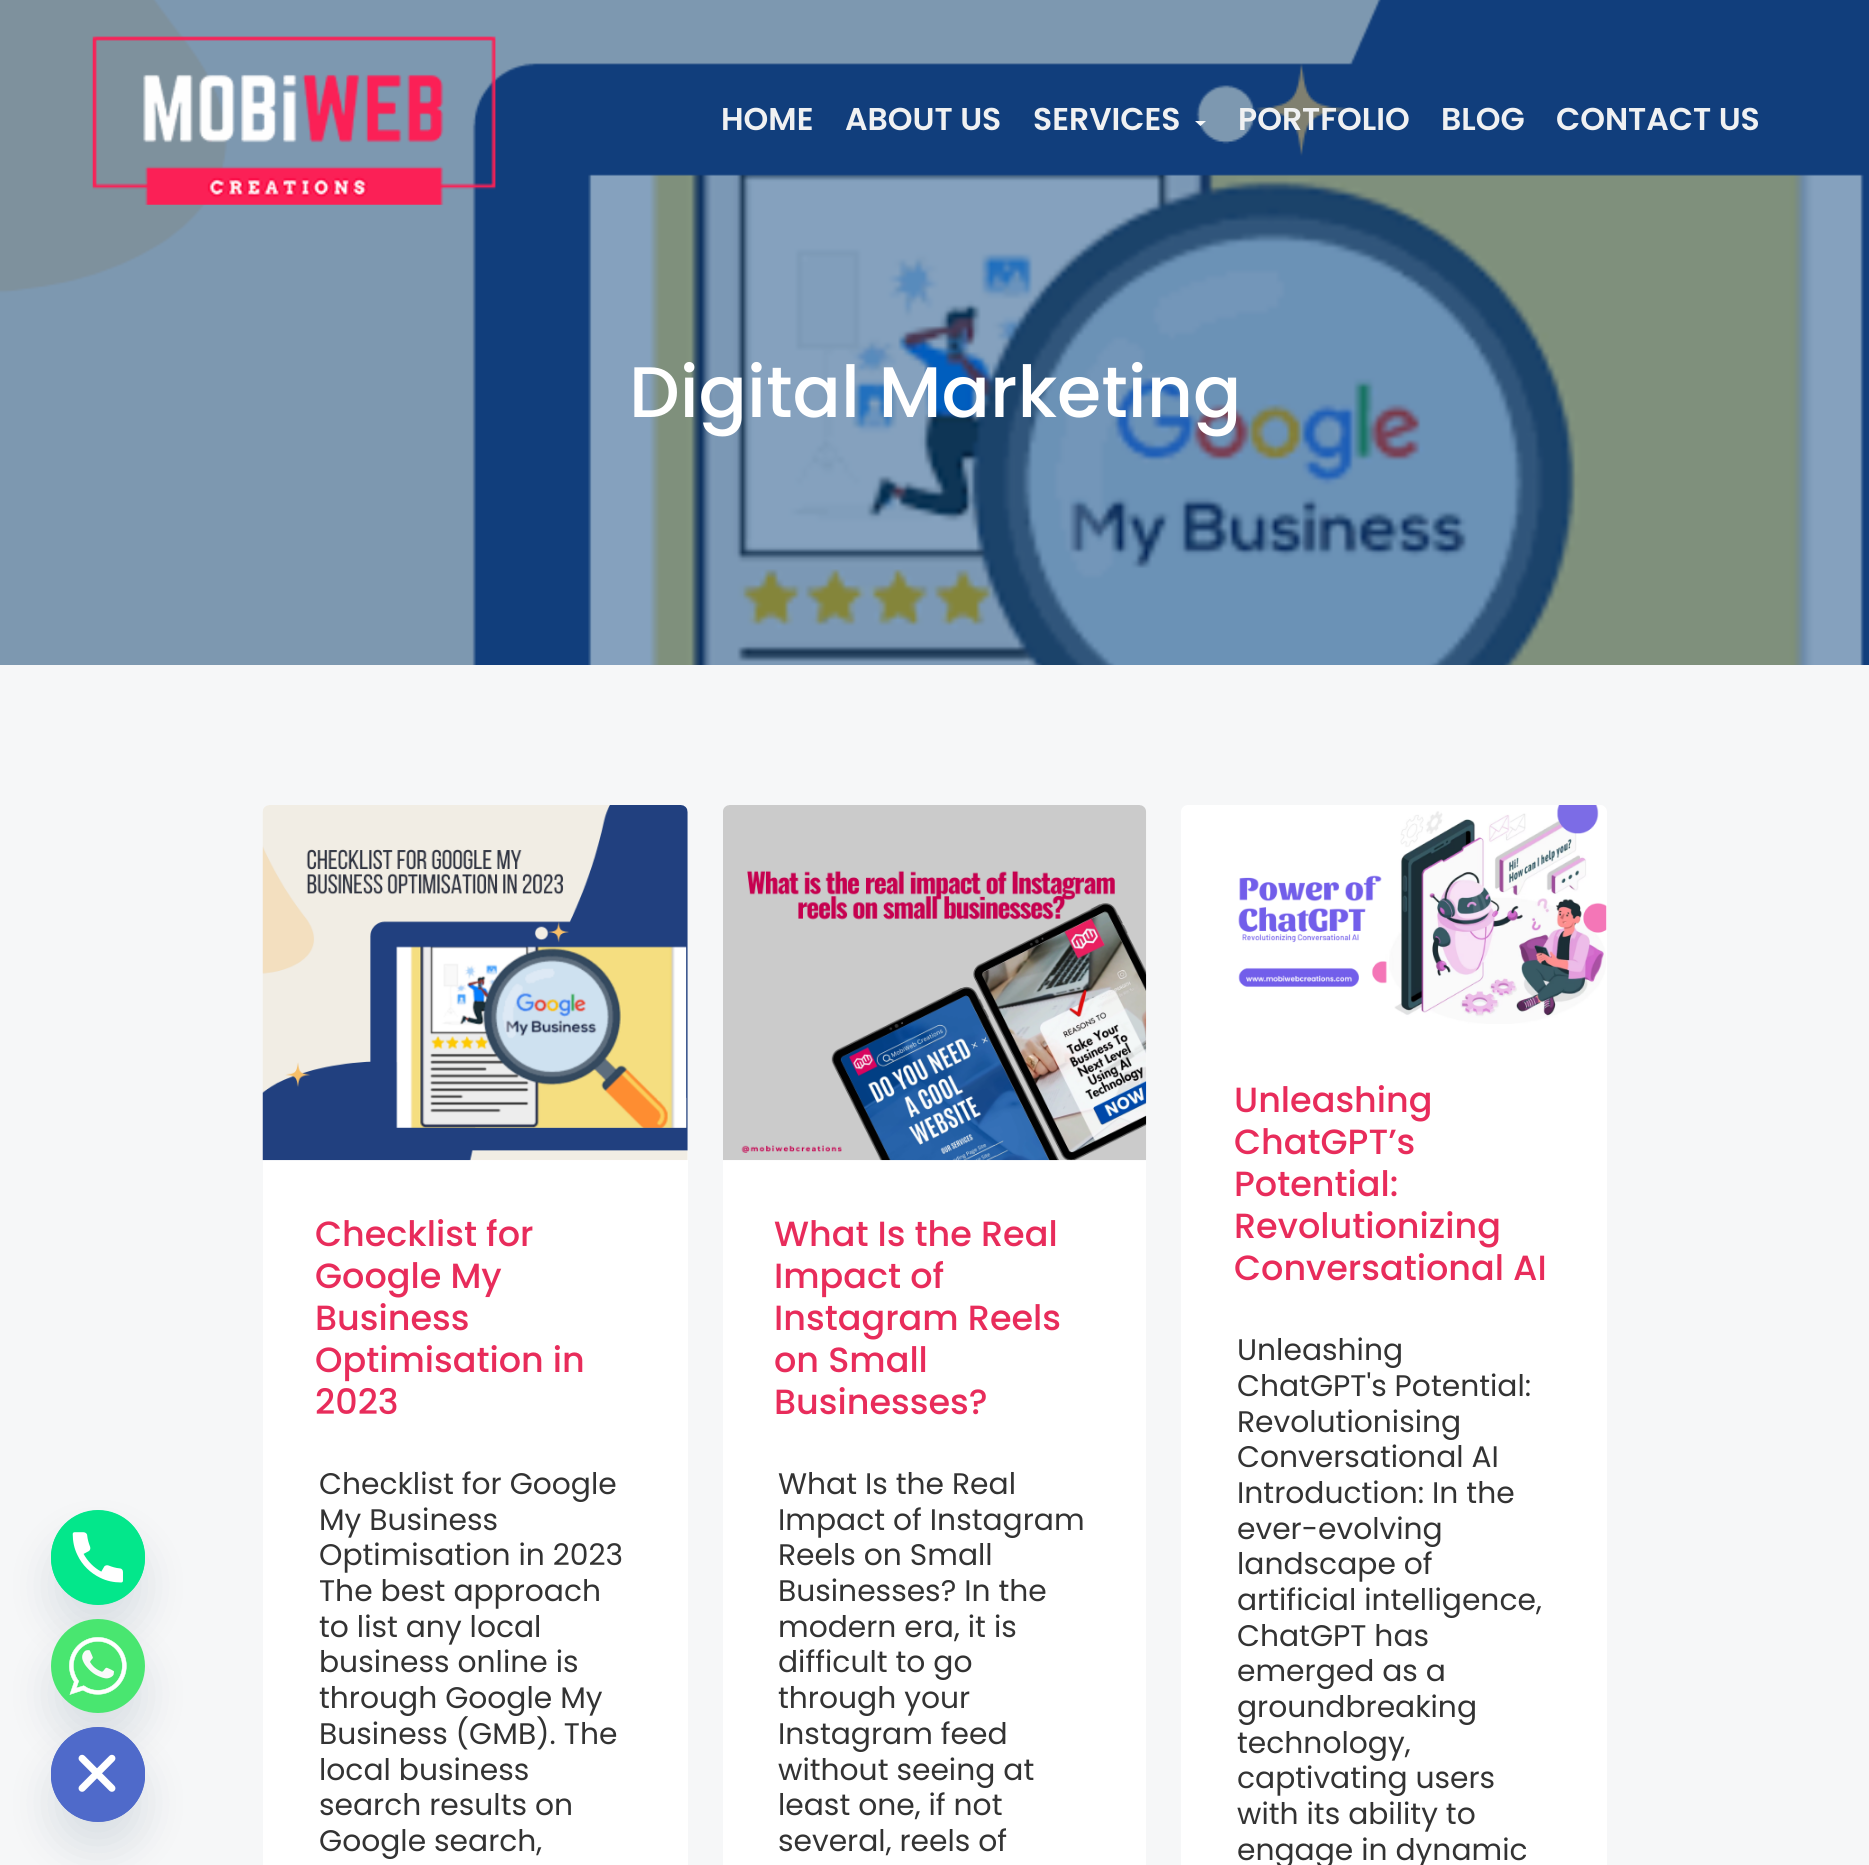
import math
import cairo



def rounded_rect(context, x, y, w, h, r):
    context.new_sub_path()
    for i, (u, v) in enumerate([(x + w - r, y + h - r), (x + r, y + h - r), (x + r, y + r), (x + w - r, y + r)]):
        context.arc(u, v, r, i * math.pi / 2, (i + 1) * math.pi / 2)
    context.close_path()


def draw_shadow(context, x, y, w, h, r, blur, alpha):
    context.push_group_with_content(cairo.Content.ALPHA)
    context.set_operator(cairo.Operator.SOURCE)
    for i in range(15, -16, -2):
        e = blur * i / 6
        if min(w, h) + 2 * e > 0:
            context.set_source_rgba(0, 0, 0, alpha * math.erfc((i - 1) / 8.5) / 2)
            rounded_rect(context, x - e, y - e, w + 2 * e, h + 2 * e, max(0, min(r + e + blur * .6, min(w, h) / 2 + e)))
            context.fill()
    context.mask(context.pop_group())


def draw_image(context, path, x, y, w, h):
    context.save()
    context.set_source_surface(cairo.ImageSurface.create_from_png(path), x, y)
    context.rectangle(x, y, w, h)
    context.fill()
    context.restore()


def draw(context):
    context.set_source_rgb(246 / 255, 247 / 255, 248 / 255)
    context.paint()
    context.set_source_rgb(73 / 255, 104 / 255, 126 / 255)
    draw_shadow(context, 51, 1538, 94, 95, 47, 21, 0.16)
    context.set_source_rgb(3 / 255, 231 / 255, 139 / 255)
    rounded_rect(context, 51, 1510, 94, 95, 47)
    context.fill()
    draw_image(context, "images/1.png", 51, 1510, 94, 95)
    context.set_source_rgb(73 / 255, 104 / 255, 126 / 255)
    draw_shadow(context, 51, 1647, 94, 94, 47, 21, 0.16)
    draw_image(context, "images/2.png", 51, 1619, 94, 94)
    draw_shadow(context, 51, 1755, 94, 95, 47, 21, 0.16)
    context.set_source_rgb(79 / 255, 106 / 255, 202 / 255)
    context.new_path()
    context.move_to(98, 1822)
    context.curve_to(72, 1822, 51, 1801, 51, 1774)
    context.curve_to(51, 1748, 72, 1727, 98, 1727)
    context.curve_to(124, 1727, 145, 1748, 145, 1774)
    context.curve_to(145, 1801, 124, 1822, 98, 1822)
    context.close_path()
    context.fill()
    draw_image(context, "images/3.png", 51, 1727, 94, 95)
    draw_image(context, "images/5.png", 0, 0, 1869, 665)
    draw_image(context, "images/4.png", 92, 36, 404, 169)
    context.set_source_rgb(246 / 255, 247 / 255, 248 / 255)
    context.new_path()
    context.move_to(1195, 121)
    context.line_to(1206, 121)
    context.line_to(1200.5, 126)
    context.close_path()
    context.fill()
    context.set_source_rgb(1, 1, 1)
    rounded_rect(context, 263, 805, 425, 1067, 7)
    context.fill()
    draw_image(context, "images/6.png", 262, 805, 426, 356)
    rounded_rect(context, 723, 805, 423, 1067, 7)
    context.fill()
    draw_image(context, "images/7.png", 723, 805, 424, 356)
    rounded_rect(context, 1181, 805, 426, 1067, 7)
    context.fill()
    draw_image(context, "images/8.png", 1238, 805, 369, 219)
    context.select_font_face("Poppins SemiBold")
    context.set_font_size(31.5)
    context.set_source_rgb(240 / 255, 241 / 255, 242 / 255)
    context.move_to(721, 130)
    context.show_text("HOME")
    context.move_to(845, 130)
    context.show_text("ABOUT US")
    context.move_to(1033, 130)
    context.show_text("SERVICES")
    context.move_to(1238, 130)
    context.show_text("PORTFOLIO")
    context.move_to(1441, 130)
    context.show_text("BLOG")
    context.move_to(1556, 130)
    context.show_text("CONTACT US")
    context.select_font_face("Poppins Medium")
    context.set_font_size(71.5)
    context.set_source_rgb(1, 1, 1)
    context.move_to(629, 417)
    context.show_text("Digital Marketing")
    context.set_font_size(35)
    context.set_source_rgb(232 / 255, 44 / 255, 91 / 255)
    context.move_to(315, 1246)
    context.show_text("Checklist for")
    context.move_to(315, 1288)
    context.show_text("Google My")
    context.move_to(315, 1330)
    context.show_text("Business")
    context.move_to(315, 1372)
    context.show_text("Optimisation in")
    context.move_to(315, 1414)
    context.show_text("2023")
    context.select_font_face("Poppins")
    context.set_font_size(29.75)
    context.set_source_rgb(51 / 255, 51 / 255, 51 / 255)
    context.move_to(319, 1494)
    context.show_text("Checklist for Google")
    context.move_to(319, 1530)
    context.show_text("My Business")
    context.move_to(319, 1565)
    context.show_text("Optimisation in 2023")
    context.move_to(319, 1601)
    context.show_text("The best approach")
    context.move_to(319, 1637)
    context.show_text("to list any local")
    context.move_to(319, 1672)
    context.show_text("business online is")
    context.move_to(319, 1708)
    context.show_text("through Google My")
    context.move_to(319, 1744)
    context.show_text("Business (GMB). The")
    context.move_to(319, 1780)
    context.show_text("local business")
    context.move_to(319, 1815)
    context.show_text("search results on")
    context.move_to(319, 1851)
    context.show_text("Google search,")
    context.select_font_face("Poppins Medium")
    context.set_font_size(35)
    context.set_source_rgb(232 / 255, 44 / 255, 91 / 255)
    context.move_to(774, 1246)
    context.show_text("What Is the Real")
    context.move_to(774, 1288)
    context.show_text("Impact of")
    context.move_to(774, 1330)
    context.show_text("Instagram Reels")
    context.move_to(774, 1372)
    context.show_text("on Small")
    context.move_to(774, 1414)
    context.show_text("Businesses?")
    context.select_font_face("Poppins")
    context.set_font_size(29.75)
    context.set_source_rgb(51 / 255, 51 / 255, 51 / 255)
    context.move_to(778, 1494)
    context.show_text("What Is the Real")
    context.move_to(778, 1530)
    context.show_text("Impact of Instagram")
    context.move_to(778, 1565)
    context.show_text("Reels on Small")
    context.move_to(778, 1601)
    context.show_text("Businesses? In the")
    context.move_to(778, 1637)
    context.show_text("modern era, it is")
    context.move_to(778, 1672)
    context.show_text("difficult to go")
    context.move_to(778, 1708)
    context.show_text("through your")
    context.move_to(778, 1744)
    context.show_text("Instagram feed")
    context.move_to(778, 1780)
    context.show_text("without seeing at")
    context.move_to(778, 1815)
    context.show_text("least one, if not")
    context.move_to(778, 1851)
    context.show_text("several, reels of")
    context.select_font_face("Poppins Medium")
    context.set_font_size(35)
    context.set_source_rgb(232 / 255, 44 / 255, 91 / 255)
    context.move_to(1234, 1112)
    context.show_text("Unleashing")
    context.move_to(1234, 1154)
    context.show_text("ChatGPT’s")
    context.move_to(1234, 1196)
    context.show_text("Potential:")
    context.move_to(1234, 1238)
    context.show_text("Revolutionizing")
    context.move_to(1234, 1280)
    context.show_text("Conversational AI")
    context.select_font_face("Poppins")
    context.set_font_size(29.75)
    context.set_source_rgb(51 / 255, 51 / 255, 51 / 255)
    context.move_to(1237, 1360)
    context.show_text("Unleashing")
    context.move_to(1237, 1396)
    context.show_text("ChatGPT's Potential:")
    context.move_to(1237, 1432)
    context.show_text("Revolutionising")
    context.move_to(1237, 1467)
    context.show_text("Conversational AI")
    context.move_to(1237, 1503)
    context.show_text("Introduction: In the")
    context.move_to(1237, 1539)
    context.show_text("ever-evolving")
    context.move_to(1237, 1574)
    context.show_text("landscape of")
    context.move_to(1237, 1610)
    context.show_text("artificial intelligence,")
    context.move_to(1237, 1646)
    context.show_text("ChatGPT has")
    context.move_to(1237, 1681)
    context.show_text("emerged as a")
    context.move_to(1237, 1717)
    context.show_text("groundbreaking")
    context.move_to(1237, 1753)
    context.show_text("technology,")
    context.move_to(1237, 1788)
    context.show_text("captivating users")
    context.move_to(1237, 1824)
    context.show_text("with its ability to")
    context.move_to(1237, 1860)
    context.show_text("engage in dynamic")


surface = cairo.ImageSurface(cairo.Format.RGB24, 1869, 1865)
context = cairo.Context(surface)
options = cairo.FontOptions()
options.set_hint_metrics(cairo.HintMetrics.OFF)
options.set_hint_style(cairo.HintStyle.NONE)
context.set_font_options(options)
context.set_miter_limit(4)
draw(context)
surface.write_to_png("out.png")
